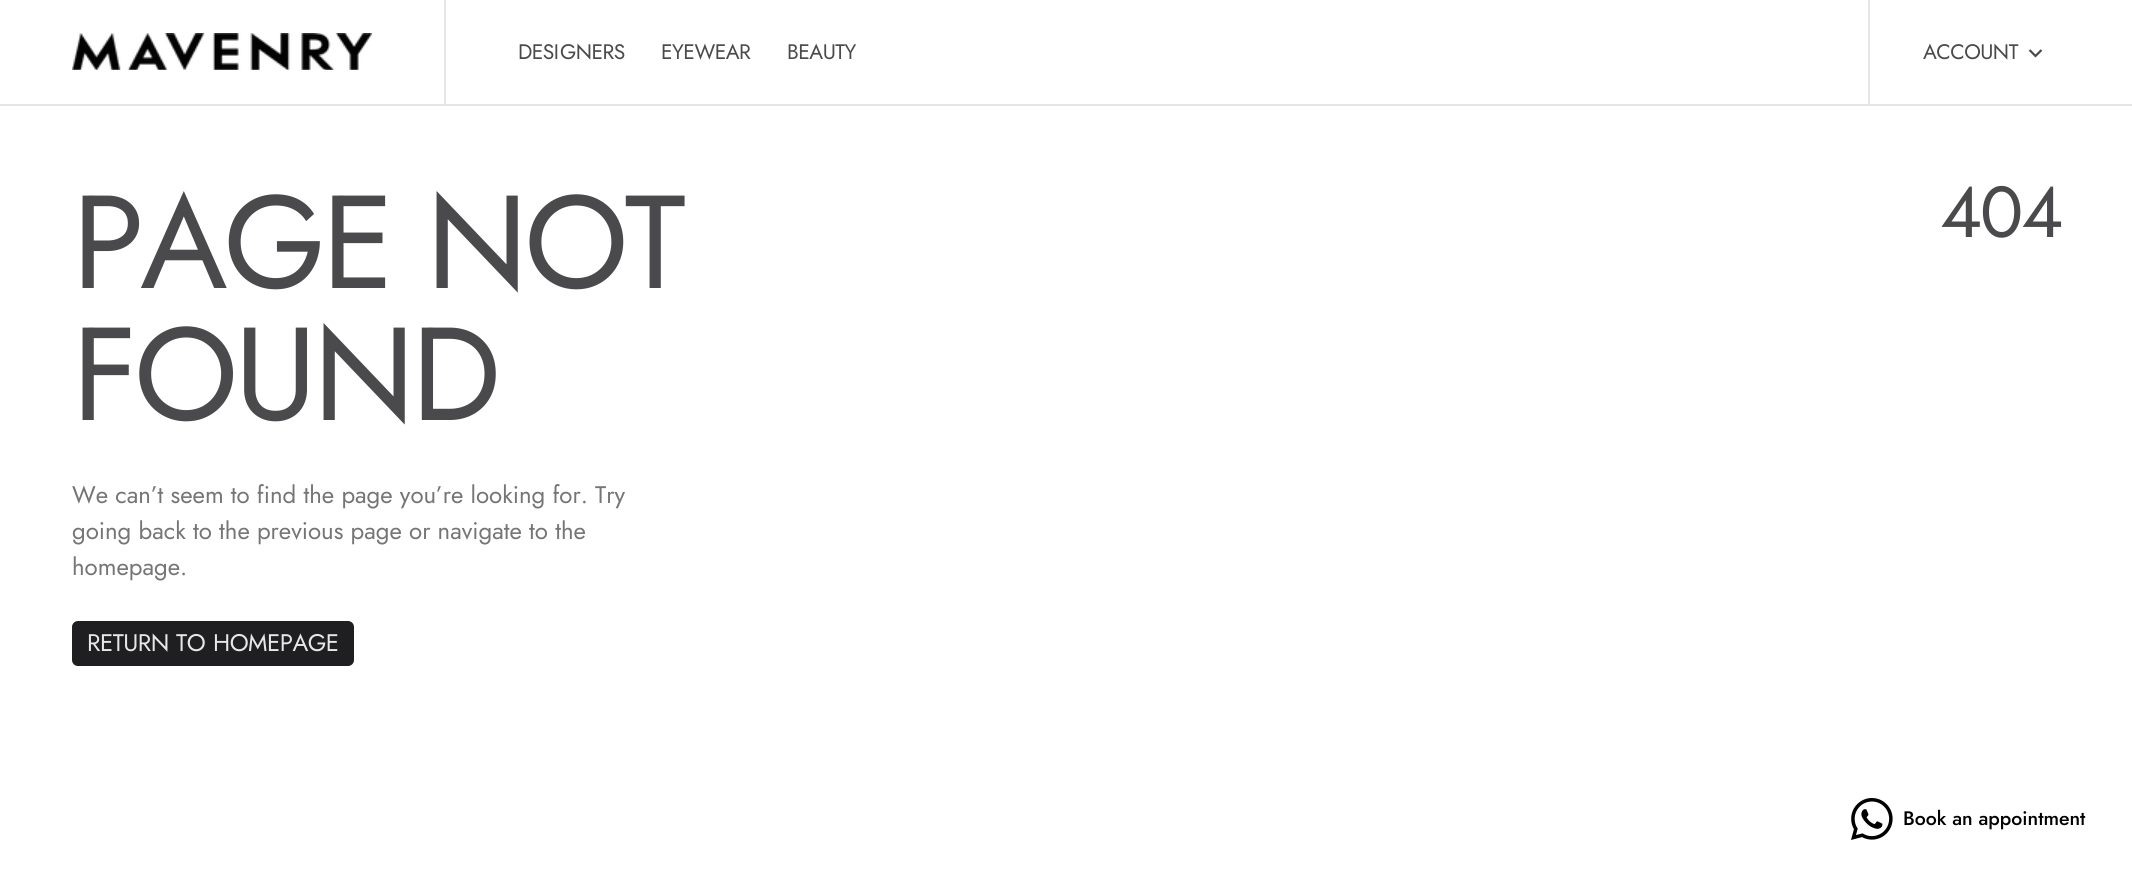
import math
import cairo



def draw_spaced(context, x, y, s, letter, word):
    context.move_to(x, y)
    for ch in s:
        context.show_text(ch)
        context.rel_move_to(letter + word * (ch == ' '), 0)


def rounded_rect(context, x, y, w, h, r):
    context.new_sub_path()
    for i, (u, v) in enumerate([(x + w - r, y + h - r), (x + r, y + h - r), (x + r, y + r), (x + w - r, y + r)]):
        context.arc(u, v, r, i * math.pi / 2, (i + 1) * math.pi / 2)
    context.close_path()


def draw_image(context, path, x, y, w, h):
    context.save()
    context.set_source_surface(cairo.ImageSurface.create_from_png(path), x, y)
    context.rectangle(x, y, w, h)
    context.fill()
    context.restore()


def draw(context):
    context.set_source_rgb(1, 1, 1)
    context.paint()
    context.set_source_rgb(229 / 255, 229 / 255, 229 / 255)
    context.rectangle(0, 104, 2132, 2)
    context.fill()
    draw_image(context, "images/1.png", 72, 33, 300, 37)
    context.rectangle(444, 0, 2, 104)
    context.fill()
    context.rectangle(1868, 0, 2, 104)
    context.fill()
    context.new_path()
    context.move_to(2041.5, 50)
    context.line_to(2035.5, 56)
    context.line_to(2029.5, 50)
    context.set_source_rgb(74 / 255, 73 / 255, 75 / 255)
    context.set_line_width(2.2)
    context.stroke()
    context.set_source_rgb(31 / 255, 30 / 255, 32 / 255)
    rounded_rect(context, 72, 621, 282, 45, 6)
    context.fill()
    draw_image(context, "images/2.png", 1851, 798, 42, 42)
    context.select_font_face("Jost")
    context.set_font_size(21)
    context.set_source_rgb(74 / 255, 73 / 255, 75 / 255)
    draw_spaced(context, 518, 59, "DESI", -0.5, 0)
    draw_spaced(context, 560, 59, "GNERS", -0.5, 0)
    draw_spaced(context, 661, 59, "EYEWEAR", -0.5, 0)
    draw_spaced(context, 787, 59, "BEAUTY", -0.5, 0)
    draw_spaced(context, 1923, 59, "ACCOUNT", -0.5, 0)
    context.set_font_size(132)
    draw_spaced(context, 72, 288, "PAGE NOT", -4, 0)
    draw_spaced(context, 72, 420, "FOUND", -4, 0)
    context.set_font_size(72)
    draw_spaced(context, 1940, 237, "404", -2, 0)
    context.set_font_size(24)
    context.set_source_rgb(117 / 255, 117 / 255, 118 / 255)
    context.move_to(72, 503)
    context.show_text("We can’t seem to find the page you’re looking for. Try")
    context.move_to(72, 539)
    context.show_text("going back to the previous page or navigate to the")
    context.move_to(72, 575)
    context.show_text("homepage.")
    context.set_source_rgb(231 / 255, 231 / 255, 232 / 255)
    draw_spaced(context, 87, 651, "RETURN", -0.5, 0)
    draw_spaced(context, 176, 651, "TO", -0.5, 0)
    draw_spaced(context, 213, 651, "HOMEPAGE", -0.5, 0)
    context.select_font_face("Jost Medium")
    context.set_font_size(19.5)
    context.set_source_rgb(0, 0, 0)
    context.move_to(1903, 825)
    context.show_text("Book an appointment")


surface = cairo.ImageSurface(cairo.Format.RGB24, 2132, 878)
context = cairo.Context(surface)
options = cairo.FontOptions()
options.set_hint_metrics(cairo.HintMetrics.OFF)
options.set_hint_style(cairo.HintStyle.NONE)
context.set_font_options(options)
context.set_miter_limit(4)
draw(context)
surface.write_to_png("out.png")
